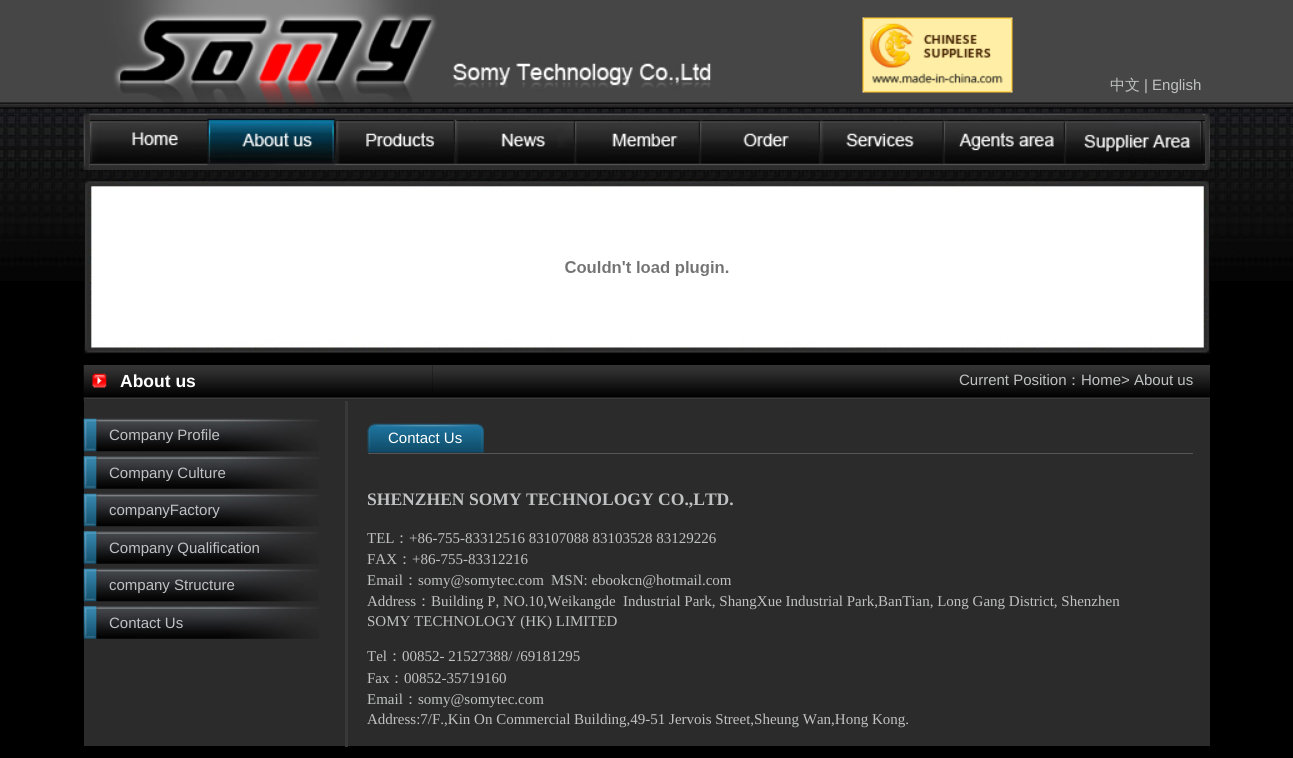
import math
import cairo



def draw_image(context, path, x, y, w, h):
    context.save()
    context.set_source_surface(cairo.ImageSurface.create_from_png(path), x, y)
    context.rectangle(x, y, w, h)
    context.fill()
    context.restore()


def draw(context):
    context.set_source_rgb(0, 0, 0)
    context.paint()
    draw_image(context, "images/1.png", 0, 0, 1293, 281)
    draw_image(context, "images/2.png", 84, 0, 647, 109)
    draw_image(context, "images/3.png", 862, 17, 151, 76)
    draw_image(context, "images/4.png", 83, 113, 1127, 57)
    draw_image(context, "images/5.png", 83, 113, 7, 57)
    draw_image(context, "images/6.png", 90, 113, 118, 52)
    draw_image(context, "images/7.png", 207, 113, 128, 53)
    draw_image(context, "images/8.png", 335, 113, 118, 52)
    draw_image(context, "images/9.png", 453, 113, 121, 52)
    draw_image(context, "images/10.png", 573, 113, 126, 52)
    draw_image(context, "images/11.png", 698, 113, 121, 52)
    draw_image(context, "images/12.png", 818, 113, 123, 52)
    draw_image(context, "images/13.png", 942, 113, 122, 52)
    draw_image(context, "images/14.png", 1063, 113, 140, 53)
    draw_image(context, "images/15.png", 1205, 114, 5, 56)
    draw_image(context, "images/16.png", 84, 180, 1126, 174)
    draw_image(context, "images/17.png", 565, 261, 164, 15)
    draw_image(context, "images/18.png", 83, 365, 350, 31)
    draw_image(context, "images/19.png", 92, 373, 15, 15)
    draw_image(context, "images/20.png", 432, 365, 778, 31)
    draw_image(context, "images/21.png", 83, 397, 1127, 5)
    context.set_source_rgb(43 / 255, 43 / 255, 43 / 255)
    context.rectangle(84, 401, 261, 345)
    context.fill()
    draw_image(context, "images/22.png", 83, 418, 236, 34)
    draw_image(context, "images/23.png", 83, 456, 236, 33)
    draw_image(context, "images/22.png", 83, 493, 236, 34)
    draw_image(context, "images/23.png", 83, 531, 236, 33)
    draw_image(context, "images/24.png", 83, 568, 236, 34)
    draw_image(context, "images/23.png", 83, 606, 236, 33)
    context.rectangle(348, 401, 862, 345)
    context.fill()
    context.set_source_rgb(57 / 255, 57 / 255, 57 / 255)
    context.rectangle(345, 401, 3, 346)
    context.fill()
    draw_image(context, "images/25.png", 367, 423, 117, 30)
    context.set_source_rgb(86 / 255, 86 / 255, 86 / 255)
    context.rectangle(368, 453, 825, 1)
    context.fill()
    context.select_font_face("WenQuanYi Zen Hei Medium")
    context.set_font_size(15)
    context.set_source_rgb(192 / 255, 193 / 255, 194 / 255)
    context.move_to(1110, 90)
    context.show_text("中文")
    context.select_font_face("Liberation Sans")
    context.move_to(1144, 90)
    context.show_text("| English")
    context.select_font_face("Liberation Sans", cairo.FontSlant.NORMAL, cairo.FontWeight.BOLD)
    context.set_font_size(17.5)
    context.set_source_rgb(1, 1, 1)
    context.move_to(120, 387)
    context.show_text("About us")
    context.select_font_face("Liberation Sans")
    context.set_font_size(15)
    context.set_source_rgb(192 / 255, 193 / 255, 194 / 255)
    context.move_to(959, 385)
    context.show_text("Current Position")
    context.select_font_face("WenQuanYi Zen Hei Medium")
    context.move_to(1066, 385)
    context.show_text("：")
    context.select_font_face("Liberation Sans")
    context.move_to(1081, 385)
    context.show_text("Home> About us")
    context.move_to(109, 440)
    context.show_text("Company Profile")
    context.move_to(109, 478)
    context.show_text("Company Culture")
    context.move_to(109, 515)
    context.show_text("companyFactory")
    context.move_to(109, 553)
    context.show_text("Company Qualification")
    context.move_to(109, 590)
    context.show_text("company Structure")
    context.move_to(109, 628)
    context.show_text("Contact Us")
    context.set_source_rgb(1, 1, 1)
    context.move_to(388, 443)
    context.show_text("Contact Us")
    context.select_font_face("Liberation Serif", cairo.FontSlant.NORMAL, cairo.FontWeight.BOLD)
    context.set_font_size(17.55)
    context.set_source_rgb(192 / 255, 193 / 255, 194 / 255)
    context.move_to(367, 505)
    context.show_text("SHENZHEN SOMY TECHNOLOGY CO.,LTD.")
    context.select_font_face("Liberation Serif")
    context.set_font_size(15)
    context.move_to(367, 543)
    context.show_text("TEL")
    context.select_font_face("WenQuanYi Zen Hei Medium")
    context.move_to(394, 543)
    context.show_text("：")
    context.select_font_face("Liberation Serif")
    context.move_to(409, 543)
    context.show_text("+86-755-83312516 83107088 83103528 83129226")
    context.move_to(367, 564)
    context.show_text("FAX")
    context.select_font_face("WenQuanYi Zen Hei Medium")
    context.move_to(397, 564)
    context.show_text("：")
    context.select_font_face("Liberation Serif")
    context.move_to(412, 564)
    context.show_text("+86-755-83312216")
    context.move_to(367, 585)
    context.show_text("Email")
    context.select_font_face("WenQuanYi Zen Hei Medium")
    context.move_to(403, 585)
    context.show_text("：")
    context.select_font_face("Liberation Serif")
    context.move_to(418, 585)
    context.show_text("somy@somytec.com")
    context.move_to(551, 585)
    context.show_text("MSN: ebookcn@hotmail.com")
    context.move_to(367, 606)
    context.show_text("Address")
    context.select_font_face("WenQuanYi Zen Hei Medium")
    context.move_to(416, 606)
    context.show_text("：")
    context.select_font_face("Liberation Serif")
    context.move_to(431, 606)
    context.show_text("Building P, NO.10,Weikangde  Industrial Park, ShangXue Industrial Park,BanTian, Long Gang District, Shenzhen")
    context.move_to(367, 626)
    context.show_text("SOMY TECHNOLOGY (HK) LIMITED")
    context.move_to(367, 661)
    context.show_text("Tel")
    context.select_font_face("WenQuanYi Zen Hei Medium")
    context.move_to(387, 661)
    context.show_text("：")
    context.select_font_face("Liberation Serif")
    context.move_to(402, 661)
    context.show_text("00852- 21527388/ /69181295")
    context.move_to(367, 683)
    context.show_text("Fax")
    context.select_font_face("WenQuanYi Zen Hei Medium")
    context.move_to(389, 683)
    context.show_text("：")
    context.select_font_face("Liberation Serif")
    context.move_to(404, 683)
    context.show_text("00852-35719160")
    context.move_to(367, 704)
    context.show_text("Email")
    context.select_font_face("WenQuanYi Zen Hei Medium")
    context.move_to(403, 704)
    context.show_text("：")
    context.select_font_face("Liberation Serif")
    context.move_to(418, 704)
    context.show_text("somy@somytec.com")
    context.move_to(367, 724)
    context.show_text("Address:7/F.,Kin On Commercial Building,49-51 Jervois Street,Sheung Wan,Hong Kong.")


surface = cairo.ImageSurface(cairo.Format.RGB24, 1293, 758)
context = cairo.Context(surface)
options = cairo.FontOptions()
options.set_hint_metrics(cairo.HintMetrics.OFF)
options.set_hint_style(cairo.HintStyle.NONE)
context.set_font_options(options)
context.set_miter_limit(4)
draw(context)
surface.write_to_png("out.png")
